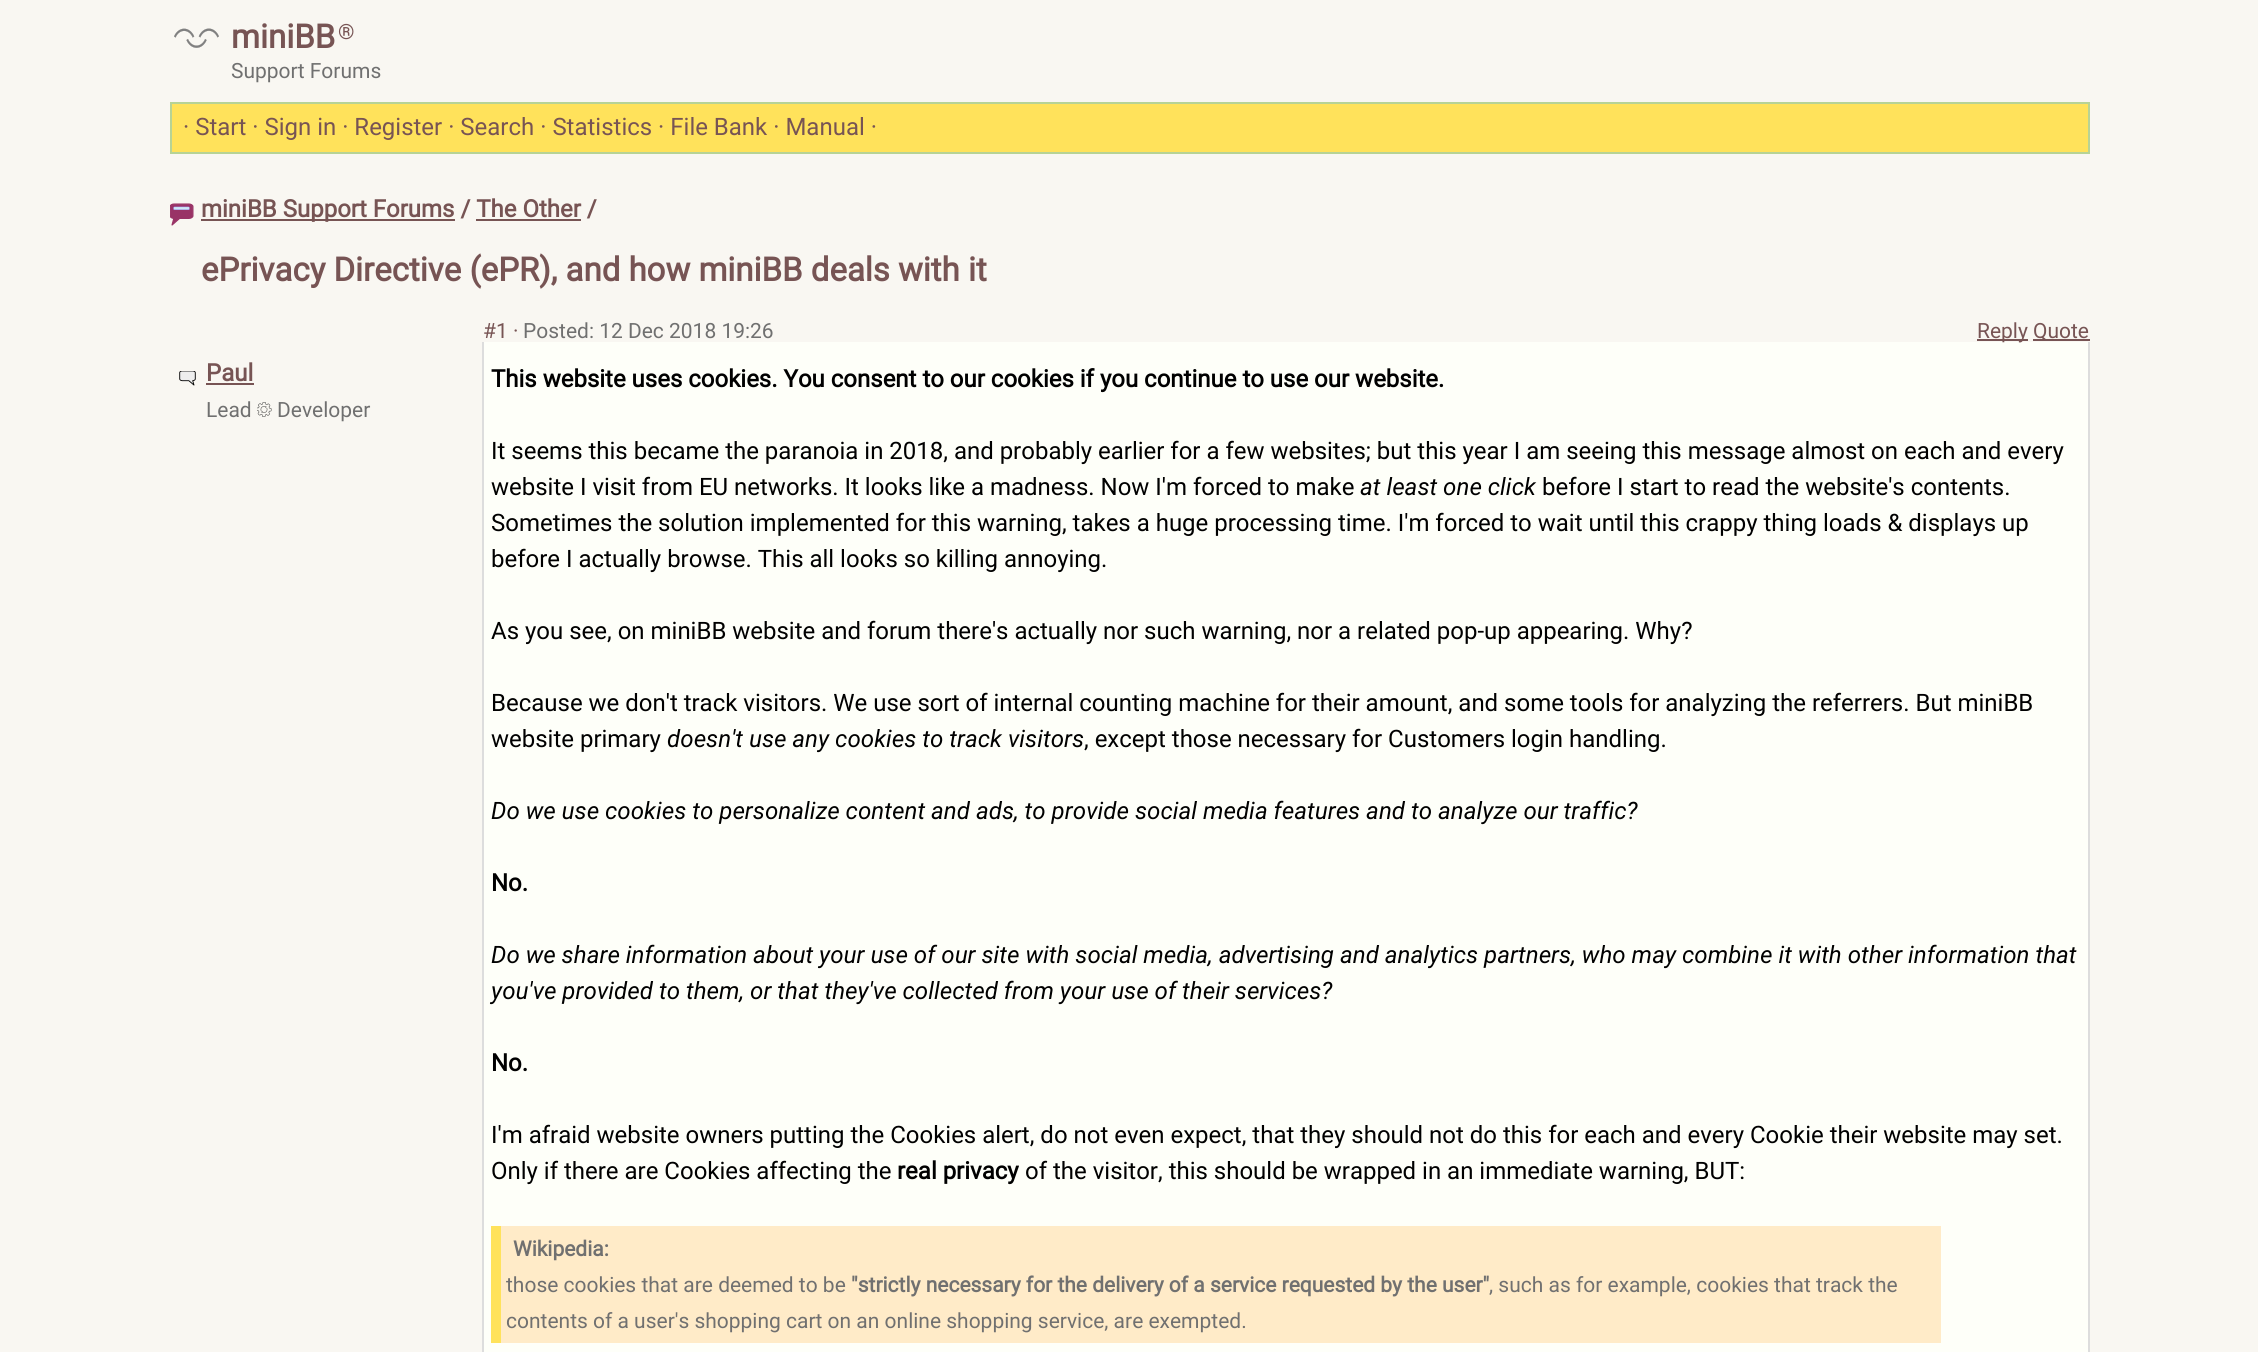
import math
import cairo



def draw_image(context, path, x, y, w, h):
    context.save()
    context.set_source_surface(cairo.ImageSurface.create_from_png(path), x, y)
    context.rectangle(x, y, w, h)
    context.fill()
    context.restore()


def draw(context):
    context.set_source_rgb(249 / 255, 247 / 255, 242 / 255)
    context.paint()
    draw_image(context, "images/1.png", 174, 28, 45, 20)
    context.set_source_rgb(1, 226 / 255, 91 / 255)
    context.rectangle(172, 104, 1916, 48)
    context.fill()
    context.set_source_rgb(183 / 255, 211 / 255, 149 / 255)
    context.rectangle(170, 102, 1920, 2)
    context.fill()
    context.rectangle(2088, 102, 2, 51)
    context.fill()
    context.rectangle(170, 152, 1920, 2)
    context.fill()
    context.rectangle(170, 102, 2, 51)
    context.fill()
    draw_image(context, "images/2.png", 170, 203, 24, 23)
    context.set_source_rgb(119 / 255, 84 / 255, 84 / 255)
    context.rectangle(201, 219, 254, 2)
    context.fill()
    context.rectangle(476, 219, 105, 2)
    context.fill()
    context.rectangle(1977, 339, 51, 2)
    context.fill()
    context.rectangle(2033, 339, 57, 2)
    context.fill()
    draw_image(context, "images/3.png", 179, 371, 17, 15)
    context.rectangle(206, 383, 48, 2)
    context.fill()
    draw_image(context, "images/4.png", 257, 402, 15, 15)
    context.set_source_rgb(254 / 255, 1, 249 / 255)
    context.rectangle(484, 342, 1604, 1010)
    context.fill()
    context.set_source_rgb(221 / 255, 221 / 255, 221 / 255)
    context.rectangle(2088, 342, 2, 1010)
    context.fill()
    context.rectangle(482, 342, 2, 1010)
    context.fill()
    context.set_source_rgb(1, 235 / 255, 200 / 255)
    context.rectangle(501, 1226, 1440, 117)
    context.fill()
    context.set_source_rgb(1, 226 / 255, 91 / 255)
    context.rectangle(491, 1226, 10, 117)
    context.fill()
    context.select_font_face("Roboto", cairo.FontSlant.NORMAL, cairo.FontWeight.BOLD)
    context.set_font_size(33)
    context.set_source_rgb(119 / 255, 84 / 255, 84 / 255)
    context.move_to(231, 48)
    context.show_text("miniBB")
    context.select_font_face("Roboto")
    context.set_font_size(21)
    context.move_to(338, 39)
    context.show_text("®")
    context.set_source_rgb(112 / 255, 112 / 255, 112 / 255)
    context.move_to(231, 78)
    context.show_text("Support Forums")
    context.set_font_size(24)
    context.set_source_rgb(119 / 255, 84 / 255, 84 / 255)
    context.move_to(183, 135)
    context.show_text("· Start · Sign in · Register · Search · Statistics · File Bank · Manual ·")
    context.select_font_face("Roboto", cairo.FontSlant.NORMAL, cairo.FontWeight.BOLD)
    context.move_to(201, 217)
    context.show_text("miniBB Support Forums / The Other /")
    context.set_font_size(33)
    context.move_to(201, 281)
    context.show_text("ePrivacy Directive (ePR), and how miniBB deals with it")
    context.select_font_face("Roboto")
    context.set_font_size(21)
    context.move_to(483, 338)
    context.show_text("#1 ·")
    context.set_source_rgb(112 / 255, 112 / 255, 112 / 255)
    context.move_to(523, 338)
    context.show_text("Posted: 12 Dec 2018 19:26")
    context.set_source_rgb(119 / 255, 84 / 255, 84 / 255)
    context.move_to(1977, 338)
    context.show_text("Reply")
    context.move_to(2033, 338)
    context.show_text("Quote")
    context.select_font_face("Roboto", cairo.FontSlant.NORMAL, cairo.FontWeight.BOLD)
    context.set_font_size(24)
    context.move_to(206, 381)
    context.show_text("Paul")
    context.select_font_face("Roboto")
    context.set_font_size(21)
    context.set_source_rgb(112 / 255, 112 / 255, 112 / 255)
    context.move_to(206, 417)
    context.show_text("Lead")
    context.move_to(277, 417)
    context.show_text("Developer")
    context.select_font_face("Roboto", cairo.FontSlant.NORMAL, cairo.FontWeight.BOLD)
    context.set_font_size(24)
    context.set_source_rgb(0, 0, 0)
    context.move_to(491, 387)
    context.show_text("This website uses cookies. You consent to our cookies if you continue to use our website.")
    context.select_font_face("Roboto")
    context.move_to(491, 459)
    context.show_text("It seems this became the paranoia in 2018, and probably earlier for a few websites; but this year I am seeing this message almost on each and every")
    context.move_to(491, 495)
    context.show_text("website I visit from EU networks. It looks like a madness. Now I'm forced to make")
    context.select_font_face("Roboto", cairo.FontSlant.ITALIC)
    context.move_to(1360, 495)
    context.show_text("at least one click")
    context.select_font_face("Roboto")
    context.move_to(1542, 495)
    context.show_text("before I start to read the website's contents.")
    context.move_to(491, 531)
    context.show_text("Sometimes the solution implemented for this warning, takes a huge processing time. I'm forced to wait until this crappy thing loads & displays up")
    context.move_to(491, 567)
    context.show_text("before I actually browse. This all looks so killing annoying.")
    context.move_to(491, 639)
    context.show_text("As you see, on miniBB website and forum there's actually nor such warning, nor a related pop-up appearing. Why?")
    context.move_to(491, 711)
    context.show_text("Because we don't track visitors. We use sort of internal counting machine for their amount, and some tools for analyzing the referrers. But miniBB")
    context.move_to(491, 747)
    context.show_text("website primary")
    context.select_font_face("Roboto", cairo.FontSlant.ITALIC)
    context.move_to(667, 747)
    context.show_text("doesn't use any cookies to track visitors")
    context.select_font_face("Roboto")
    context.move_to(1084, 747)
    context.show_text(", except those necessary for Customers login handling.")
    context.select_font_face("Roboto", cairo.FontSlant.ITALIC)
    context.move_to(491, 819)
    context.show_text("Do we use cookies to personalize content and ads, to provide social media features and to analyze our traffic?")
    context.select_font_face("Roboto", cairo.FontSlant.NORMAL, cairo.FontWeight.BOLD)
    context.move_to(491, 891)
    context.show_text("No.")
    context.select_font_face("Roboto", cairo.FontSlant.ITALIC)
    context.move_to(491, 963)
    context.show_text("Do we share information about your use of our site with social media, advertising and analytics partners, who may combine it with other information that")
    context.move_to(491, 999)
    context.show_text("you've provided to them, or that they've collected from your use of their services?")
    context.select_font_face("Roboto", cairo.FontSlant.NORMAL, cairo.FontWeight.BOLD)
    context.move_to(491, 1071)
    context.show_text("No.")
    context.select_font_face("Roboto")
    context.move_to(491, 1143)
    context.show_text("I'm afraid website owners putting the Cookies alert, do not even expect, that they should not do this for each and every Cookie their website may set.")
    context.move_to(491, 1179)
    context.show_text("Only if there are Cookies affecting the")
    context.select_font_face("Roboto", cairo.FontSlant.NORMAL, cairo.FontWeight.BOLD)
    context.move_to(897, 1179)
    context.show_text("real privacy")
    context.select_font_face("Roboto")
    context.move_to(1025, 1179)
    context.show_text("of the visitor, this should be wrapped in an immediate warning, BUT:")
    context.select_font_face("Roboto", cairo.FontSlant.NORMAL, cairo.FontWeight.BOLD)
    context.set_font_size(21)
    context.set_source_rgb(112 / 255, 112 / 255, 112 / 255)
    context.move_to(513, 1256)
    context.show_text("Wikipedia:")
    context.select_font_face("Roboto")
    context.move_to(506, 1292)
    context.show_text("those cookies that are deemed to be")
    context.select_font_face("Roboto", cairo.FontSlant.NORMAL, cairo.FontWeight.BOLD)
    context.move_to(851, 1292)
    context.show_text("\"strictly necessary for the delivery of a service requested by the user\"")
    context.select_font_face("Roboto")
    context.move_to(1489, 1292)
    context.show_text(", such as for example, cookies that track the")
    context.move_to(506, 1328)
    context.show_text("contents of a user's shopping cart on an online shopping service, are exempted.")


surface = cairo.ImageSurface(cairo.Format.RGB24, 2258, 1352)
context = cairo.Context(surface)
options = cairo.FontOptions()
options.set_hint_metrics(cairo.HintMetrics.OFF)
options.set_hint_style(cairo.HintStyle.NONE)
context.set_font_options(options)
context.set_miter_limit(4)
draw(context)
surface.write_to_png("out.png")
